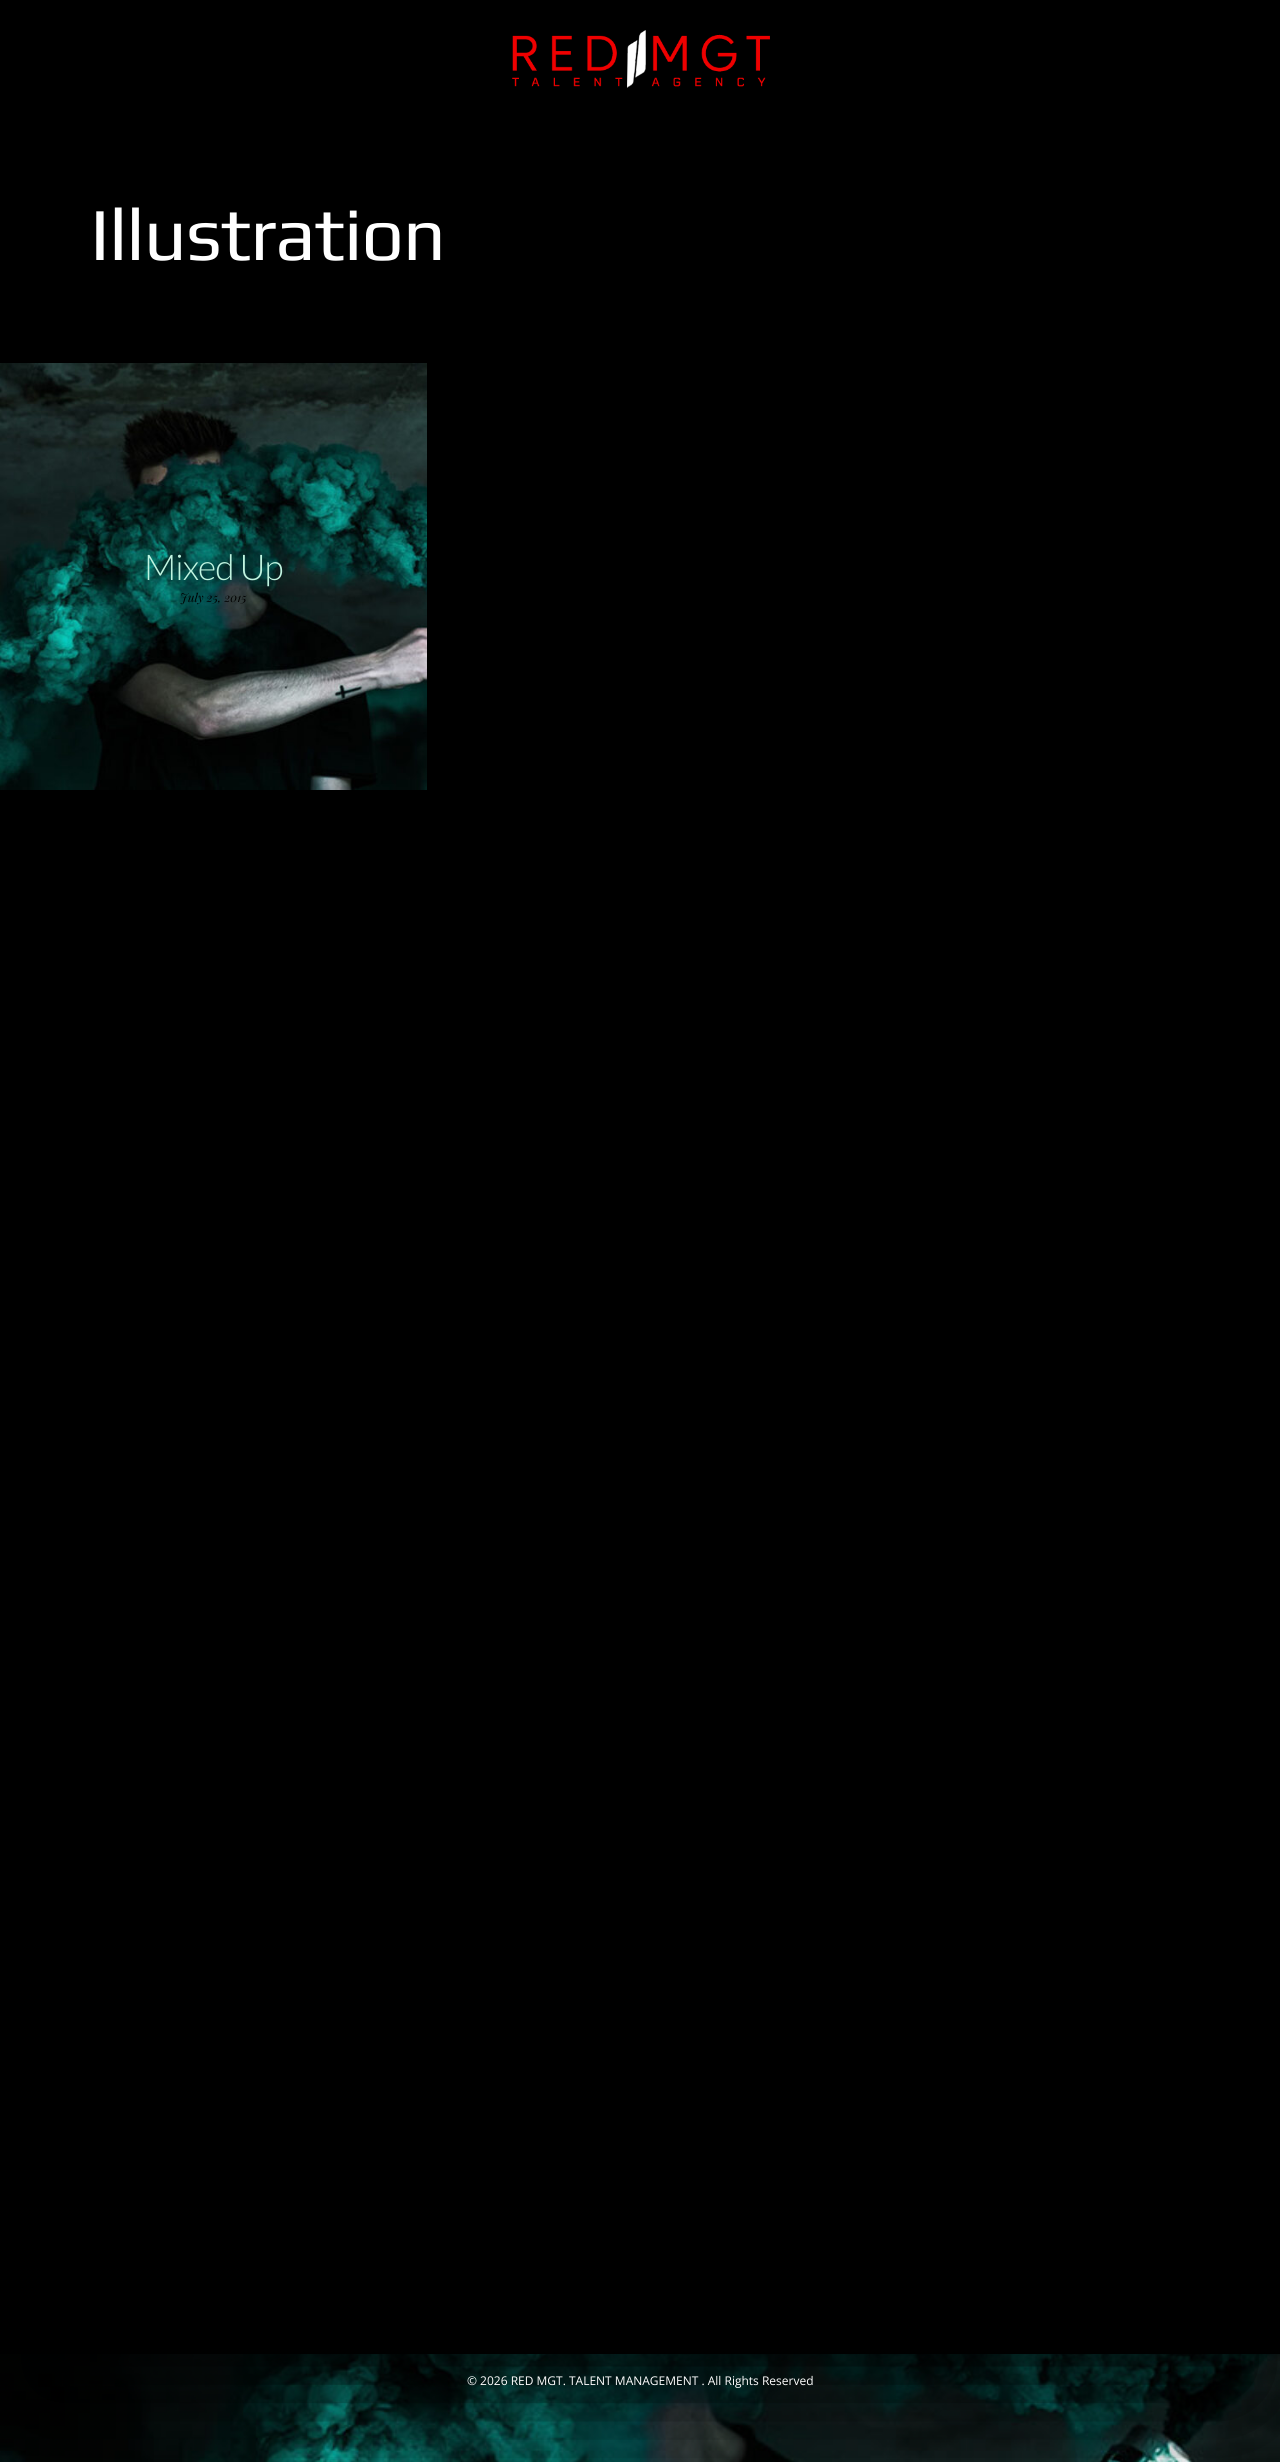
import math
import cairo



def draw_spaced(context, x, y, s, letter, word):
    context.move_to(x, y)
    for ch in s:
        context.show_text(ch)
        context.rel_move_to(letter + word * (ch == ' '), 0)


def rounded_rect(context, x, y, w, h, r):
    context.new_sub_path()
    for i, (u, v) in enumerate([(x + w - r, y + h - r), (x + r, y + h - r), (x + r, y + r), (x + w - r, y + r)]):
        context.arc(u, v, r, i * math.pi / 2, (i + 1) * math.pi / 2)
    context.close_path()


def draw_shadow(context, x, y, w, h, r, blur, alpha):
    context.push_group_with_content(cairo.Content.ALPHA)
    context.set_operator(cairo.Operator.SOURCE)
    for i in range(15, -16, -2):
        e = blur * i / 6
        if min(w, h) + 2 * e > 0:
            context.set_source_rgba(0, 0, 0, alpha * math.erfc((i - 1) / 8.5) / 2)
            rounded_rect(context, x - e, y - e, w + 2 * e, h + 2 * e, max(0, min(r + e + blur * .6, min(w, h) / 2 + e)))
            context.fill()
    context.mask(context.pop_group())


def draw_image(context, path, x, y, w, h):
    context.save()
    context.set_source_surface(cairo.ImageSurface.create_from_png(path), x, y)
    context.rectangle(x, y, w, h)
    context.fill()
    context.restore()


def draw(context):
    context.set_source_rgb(0, 0, 0)
    context.paint()
    draw_image(context, "images/1.png", 512, 30, 258, 58)
    draw_image(context, "images/3.png", 0, 2354, 1280, 108)
    draw_shadow(context, 30, 423, 1220, 1971, 0, 55, 1)
    draw_image(context, "images/2.png", 0, 363, 427, 427)
    context.select_font_face("Play")
    context.set_font_size(75)
    context.set_source_rgb(1, 1, 1)
    draw_spaced(context, 90, 260, "Illustration", -1, 0)
    context.select_font_face("Lato Light")
    context.set_font_size(35.5)
    context.set_source_rgb(192 / 255, 244 / 255, 224 / 255)
    draw_spaced(context, 144, 580, "Mixed Up", -1, 0)
    context.select_font_face("Playfair Display", cairo.FontSlant.ITALIC)
    context.set_font_size(12)
    context.set_source_rgb(0, 0, 0)
    context.move_to(180, 602)
    context.show_text("July 25, 2015")
    context.select_font_face("Open Sans")
    context.set_source_rgb(1, 1, 1)
    context.move_to(467, 2385)
    context.show_text("© 2026 RED MGT. TALENT MANAGEMENT . All Rights Reserved")


surface = cairo.ImageSurface(cairo.Format.RGB24, 1280, 2462)
context = cairo.Context(surface)
options = cairo.FontOptions()
options.set_hint_metrics(cairo.HintMetrics.OFF)
options.set_hint_style(cairo.HintStyle.NONE)
context.set_font_options(options)
context.set_miter_limit(4)
draw(context)
surface.write_to_png("out.png")
